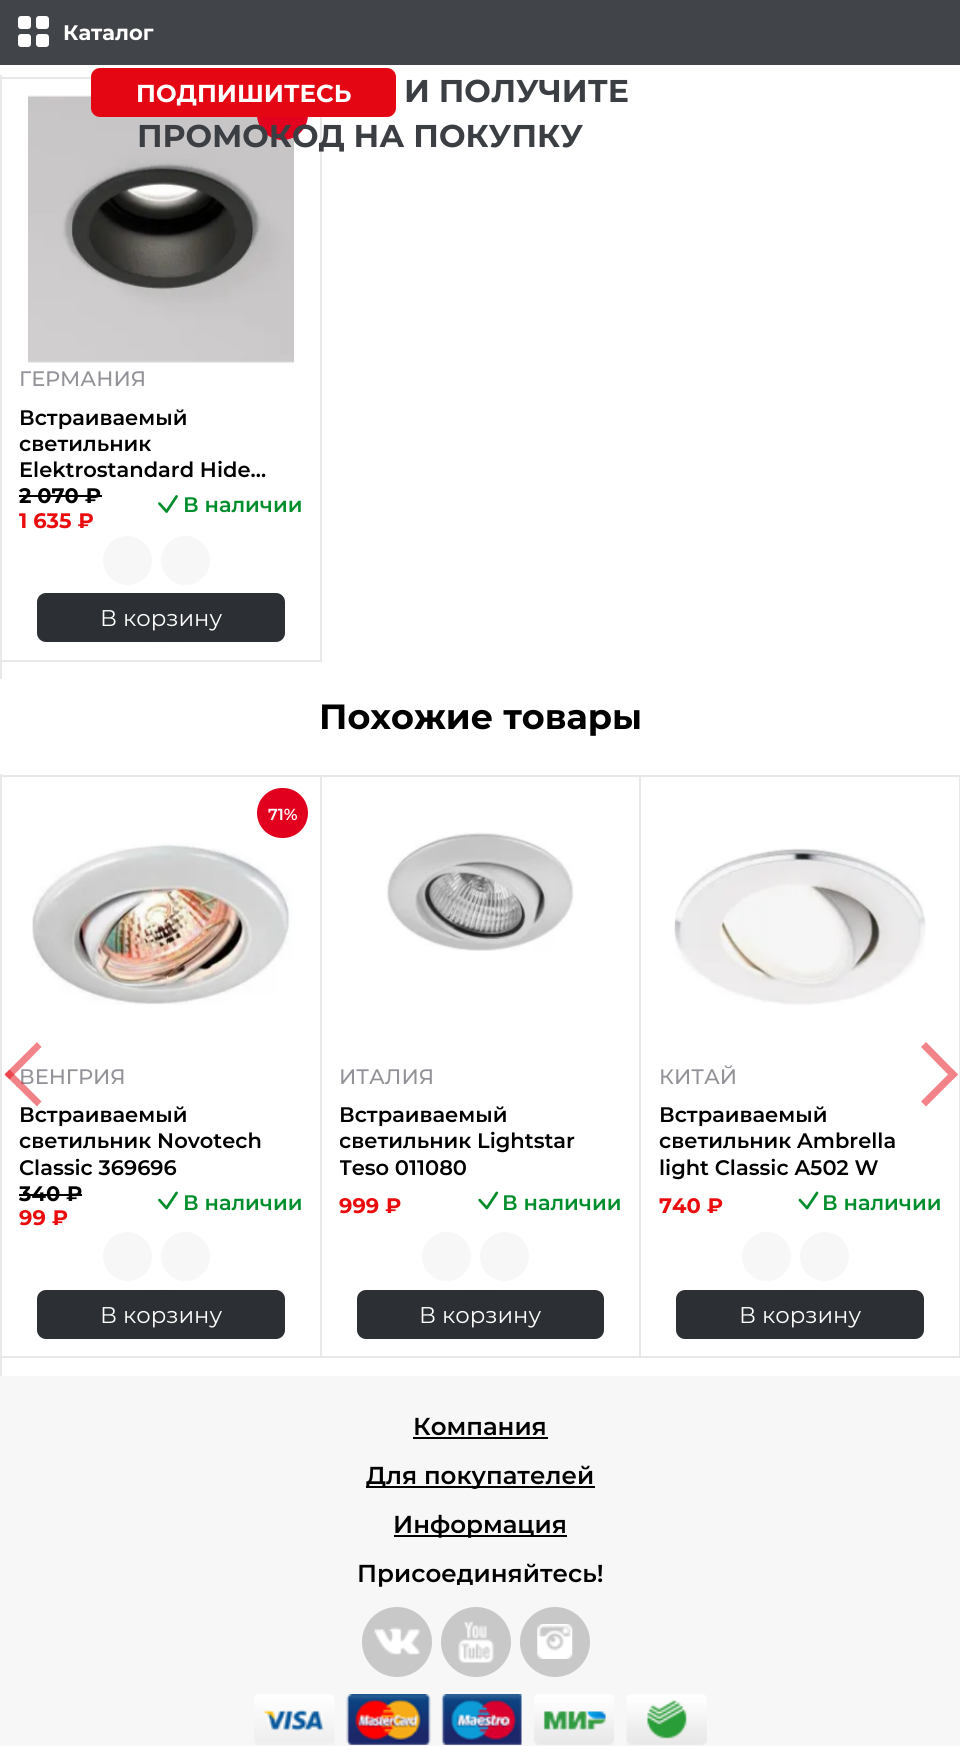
import math
import cairo



def rounded_rect(context, x, y, w, h, r):
    context.new_sub_path()
    for i, (u, v) in enumerate([(x + w - r, y + h - r), (x + r, y + h - r), (x + r, y + r), (x + w - r, y + r)]):
        context.arc(u, v, r, i * math.pi / 2, (i + 1) * math.pi / 2)
    context.close_path()


def draw_image(context, path, x, y, w, h):
    context.save()
    context.set_source_surface(cairo.ImageSurface.create_from_png(path), x, y)
    context.rectangle(x, y, w, h)
    context.fill()
    context.restore()


def draw(context):
    context.set_source_rgb(1, 1, 1)
    context.paint()
    context.set_source_rgb(65 / 255, 68 / 255, 72 / 255)
    context.rectangle(0, 0, 960, 65)
    context.fill()
    context.set_source_rgb(1, 1, 1)
    rounded_rect(context, 18, 16, 13, 13, 3)
    context.fill()
    rounded_rect(context, 36, 16, 13, 13, 3)
    context.fill()
    rounded_rect(context, 36, 34, 13, 13, 3)
    context.fill()
    rounded_rect(context, 18, 34, 13, 13, 3)
    context.fill()
    draw_image(context, "images/1.png", 28, 95, 266, 268)
    context.set_source_rgb(226 / 255, 0, 31 / 255)
    context.arc(282.5, 114.5, 25.5, 0, 2 * math.pi)
    context.fill()
    context.set_source_rgb(228 / 255, 6 / 255, 19 / 255)
    rounded_rect(context, 91, 68, 305, 49, 9)
    context.fill()
    context.set_source_rgb(232 / 255, 232 / 255, 232 / 255)
    context.rectangle(0, 75, 2, 604)
    context.fill()
    context.rectangle(2, 77, 89, 2)
    context.fill()
    context.rectangle(320, 117, 2, 545)
    context.fill()
    context.rectangle(2, 660, 320, 2)
    context.fill()
    context.set_source_rgb(0, 0, 0)
    context.rectangle(19, 495, 83, 2)
    context.fill()
    draw_image(context, "images/2.png", 158, 495, 20, 18)
    context.set_source_rgb(247 / 255, 247 / 255, 247 / 255)
    context.arc(127.5, 560.5, 24.5, 0, 2 * math.pi)
    context.fill()
    context.arc(185.5, 560.5, 24.5, 0, 2 * math.pi)
    context.fill()
    context.new_path()
    context.move_to(161, 593.5)
    context.curve_to(229.5, 593.5, 285, 604.5, 285, 618)
    context.curve_to(285, 631.5, 229.5, 642.5, 161, 642.5)
    context.curve_to(92.5, 642.5, 37, 631.5, 37, 618)
    context.curve_to(37, 604.5, 92.5, 593.5, 161, 593.5)
    context.close_path()
    context.fill()
    context.set_source_rgb(44 / 255, 47 / 255, 52 / 255)
    rounded_rect(context, 37, 593, 248, 49, 9)
    context.fill()
    context.set_source_rgb(232 / 255, 232 / 255, 232 / 255)
    context.rectangle(0, 774, 2, 602)
    context.fill()
    context.rectangle(2, 775, 958, 2)
    context.fill()
    context.rectangle(320, 775, 2, 583)
    context.fill()
    context.rectangle(2, 1356, 320, 2)
    context.fill()
    context.set_source_rgb(226 / 255, 0, 31 / 255)
    rounded_rect(context, 257, 788, 51, 50, 25)
    context.fill()
    draw_image(context, "images/3.png", 32, 843, 261, 162)
    context.set_source_rgb(0, 0, 0)
    context.rectangle(19, 1194, 63, 2)
    context.fill()
    draw_image(context, "images/4.png", 158, 1191, 20, 19)
    context.set_source_rgb(247 / 255, 247 / 255, 247 / 255)
    context.arc(127.5, 1256.5, 24.5, 0, 2 * math.pi)
    context.fill()
    context.arc(185.5, 1256.5, 24.5, 0, 2 * math.pi)
    context.fill()
    context.new_path()
    context.move_to(161, 1289.5)
    context.curve_to(229.5, 1289.5, 285, 1300.5, 285, 1314)
    context.curve_to(285, 1327.5, 229.5, 1338.5, 161, 1338.5)
    context.curve_to(92.5, 1338.5, 37, 1327.5, 37, 1314)
    context.curve_to(37, 1300.5, 92.5, 1289.5, 161, 1289.5)
    context.close_path()
    context.fill()
    context.set_source_rgb(44 / 255, 47 / 255, 52 / 255)
    rounded_rect(context, 37, 1290, 248, 49, 9)
    context.fill()
    context.set_source_rgb(232 / 255, 232 / 255, 232 / 255)
    context.rectangle(639, 775, 2, 583)
    context.fill()
    context.rectangle(322, 1356, 319, 2)
    context.fill()
    draw_image(context, "images/5.png", 386, 832, 188, 119)
    draw_image(context, "images/6.png", 478, 1191, 21, 19)
    context.set_source_rgb(247 / 255, 247 / 255, 247 / 255)
    context.arc(446.5, 1256.5, 24.5, 0, 2 * math.pi)
    context.fill()
    context.arc(504.5, 1256.5, 24.5, 0, 2 * math.pi)
    context.fill()
    context.new_path()
    context.move_to(480.5, 1289.5)
    context.curve_to(548.5, 1289.5, 604, 1300.5, 604, 1314)
    context.curve_to(604, 1327.5, 548.5, 1338.5, 480.5, 1338.5)
    context.curve_to(412.5, 1338.5, 357, 1327.5, 357, 1314)
    context.curve_to(357, 1300.5, 412.5, 1289.5, 480.5, 1289.5)
    context.close_path()
    context.fill()
    context.set_source_rgb(44 / 255, 47 / 255, 52 / 255)
    rounded_rect(context, 357, 1290, 247, 49, 9)
    context.fill()
    context.set_source_rgb(232 / 255, 232 / 255, 232 / 255)
    context.rectangle(959, 775, 1, 583)
    context.fill()
    context.rectangle(641, 1356, 319, 2)
    context.fill()
    draw_image(context, "images/7.png", 674, 848, 252, 158)
    draw_image(context, "images/8.png", 798, 1191, 21, 19)
    context.set_source_rgb(247 / 255, 247 / 255, 247 / 255)
    context.arc(766.5, 1256.5, 24.5, 0, 2 * math.pi)
    context.fill()
    context.arc(824.5, 1256.5, 24.5, 0, 2 * math.pi)
    context.fill()
    context.new_path()
    context.move_to(800, 1289.5)
    context.curve_to(868.5, 1289.5, 924, 1300.5, 924, 1314)
    context.curve_to(924, 1327.5, 868.5, 1338.5, 800, 1338.5)
    context.curve_to(731.5, 1338.5, 676, 1327.5, 676, 1314)
    context.curve_to(676, 1300.5, 731.5, 1289.5, 800, 1289.5)
    context.close_path()
    context.fill()
    context.set_source_rgb(44 / 255, 47 / 255, 52 / 255)
    rounded_rect(context, 676, 1290, 248, 49, 9)
    context.fill()
    context.set_source_rgb(242 / 255, 131 / 255, 137 / 255)
    context.new_path()
    context.move_to(958, 1074.5)
    context.line_to(926, 1106.5)
    context.line_to(921, 1101.5)
    context.line_to(953, 1069.5)
    context.close_path()
    context.fill()
    context.new_path()
    context.move_to(958, 1074.5)
    context.line_to(953, 1079.5)
    context.line_to(921, 1047)
    context.line_to(926, 1042)
    context.close_path()
    context.fill()
    context.set_source_rgb(247 / 255, 247 / 255, 247 / 255)
    context.rectangle(0, 1376, 960, 370)
    context.fill()
    context.set_source_rgb(0, 0, 0)
    context.rectangle(413, 1437, 135, 2)
    context.fill()
    context.rectangle(366, 1486, 229, 2)
    context.fill()
    context.rectangle(394, 1535, 173, 2)
    context.fill()
    context.set_source_rgb(200 / 255, 200 / 255, 200 / 255)
    context.arc(397, 1642, 35, 0, 2 * math.pi)
    context.fill()
    draw_image(context, "images/9.png", 374, 1627, 46, 28)
    context.arc(476, 1642, 35, 0, 2 * math.pi)
    context.fill()
    draw_image(context, "images/10.png", 458, 1621, 36, 42)
    context.arc(555, 1642, 35, 0, 2 * math.pi)
    context.fill()
    draw_image(context, "images/11.png", 537, 1624, 36, 35)
    draw_image(context, "images/12.png", 254, 1694, 81, 51)
    draw_image(context, "images/13.png", 346, 1694, 85, 51)
    draw_image(context, "images/14.png", 441, 1694, 81, 51)
    draw_image(context, "images/15.png", 534, 1694, 80, 51)
    draw_image(context, "images/16.png", 626, 1694, 81, 51)
    context.select_font_face("Montserrat", cairo.FontSlant.NORMAL, cairo.FontWeight.BOLD)
    context.set_font_size(21)
    context.set_source_rgb(1, 1, 1)
    context.move_to(63, 40)
    context.show_text("Каталог")
    context.set_font_size(24.5)
    context.move_to(136, 102)
    context.show_text("ПОДПИШИТЕСЬ")
    context.set_font_size(31.5)
    context.set_source_rgb(59 / 255, 62 / 255, 67 / 255)
    context.move_to(404, 102)
    context.show_text("И ПОЛУЧИТЕ")
    context.move_to(137, 147)
    context.show_text("ПРОМОКОД НА ПОКУПКУ")
    context.select_font_face("Montserrat Medium")
    context.set_font_size(21)
    context.set_source_rgb(147 / 255, 146 / 255, 152 / 255)
    context.move_to(19, 386)
    context.show_text("ГЕРМАНИЯ")
    context.select_font_face("Montserrat SemiBold")
    context.set_source_rgb(0, 0, 0)
    context.move_to(19, 425)
    context.show_text("Встраиваемый")
    context.move_to(19, 451)
    context.show_text("светильник")
    context.move_to(19, 477)
    context.show_text("Elektrostandard Hide…")
    context.select_font_face("Montserrat", cairo.FontSlant.NORMAL, cairo.FontWeight.BOLD)
    context.move_to(19, 503)
    context.show_text("2 070 ₽")
    context.set_source_rgb(234 / 255, 11 / 255, 12 / 255)
    context.move_to(19, 528)
    context.show_text("1 635 ₽")
    context.select_font_face("Montserrat SemiBold")
    context.set_source_rgb(0, 141 / 255, 43 / 255)
    context.move_to(183, 512)
    context.show_text("В наличии")
    context.select_font_face("Montserrat")
    context.set_font_size(22.75)
    context.set_source_rgb(1, 1, 1)
    context.move_to(100, 626)
    context.show_text("В корзину")
    context.select_font_face("Montserrat", cairo.FontSlant.NORMAL, cairo.FontWeight.BOLD)
    context.set_font_size(35)
    context.set_source_rgb(0, 0, 0)
    context.move_to(319, 729)
    context.show_text("Похожие товары")
    context.select_font_face("Montserrat SemiBold")
    context.set_font_size(16)
    context.set_source_rgb(1, 1, 1)
    context.move_to(268, 820)
    context.show_text("71%")
    context.select_font_face("Montserrat Medium")
    context.set_font_size(21)
    context.set_source_rgb(147 / 255, 146 / 255, 152 / 255)
    context.move_to(19, 1084)
    context.show_text("ВЕНГРИЯ")
    context.select_font_face("Montserrat SemiBold")
    context.set_source_rgb(0, 0, 0)
    context.move_to(19, 1122)
    context.show_text("Встраиваемый")
    context.move_to(19, 1148)
    context.show_text("светильник Novotech")
    context.move_to(19, 1175)
    context.show_text("Classic 369696")
    context.select_font_face("Montserrat", cairo.FontSlant.NORMAL, cairo.FontWeight.BOLD)
    context.move_to(19, 1201)
    context.show_text("340 ₽")
    context.set_source_rgb(234 / 255, 11 / 255, 12 / 255)
    context.move_to(19, 1225)
    context.show_text("99 ₽")
    context.select_font_face("Montserrat SemiBold")
    context.set_source_rgb(0, 141 / 255, 43 / 255)
    context.move_to(183, 1210)
    context.show_text("В наличии")
    context.select_font_face("Montserrat")
    context.set_font_size(22.75)
    context.set_source_rgb(1, 1, 1)
    context.move_to(100, 1323)
    context.show_text("В корзину")
    context.select_font_face("Montserrat Medium")
    context.set_font_size(21)
    context.set_source_rgb(147 / 255, 146 / 255, 152 / 255)
    context.move_to(339, 1084)
    context.show_text("ИТАЛИЯ")
    context.select_font_face("Montserrat SemiBold")
    context.set_source_rgb(0, 0, 0)
    context.move_to(339, 1122)
    context.show_text("Встраиваемый")
    context.save()
    context.rectangle(340, 1101, 281, 79)
    context.clip()
    context.move_to(339, 1148)
    context.show_text("светильник Lightstar")
    context.move_to(339, 1175)
    context.show_text("Teso 011080")
    context.restore()
    context.select_font_face("Montserrat", cairo.FontSlant.NORMAL, cairo.FontWeight.BOLD)
    context.set_source_rgb(234 / 255, 11 / 255, 12 / 255)
    context.move_to(339, 1213)
    context.show_text("999 ₽")
    context.select_font_face("Montserrat SemiBold")
    context.set_source_rgb(0, 141 / 255, 43 / 255)
    context.move_to(502, 1210)
    context.show_text("В наличии")
    context.select_font_face("Montserrat")
    context.set_font_size(22.75)
    context.set_source_rgb(1, 1, 1)
    context.move_to(419, 1323)
    context.show_text("В корзину")
    context.select_font_face("Montserrat Medium")
    context.set_font_size(21)
    context.set_source_rgb(147 / 255, 146 / 255, 152 / 255)
    context.move_to(659, 1084)
    context.show_text("КИТАЙ")
    context.select_font_face("Montserrat SemiBold")
    context.set_source_rgb(0, 0, 0)
    context.move_to(659, 1122)
    context.show_text("Встраиваемый")
    context.move_to(659, 1148)
    context.show_text("светильник Ambrella")
    context.move_to(659, 1175)
    context.show_text("light Classic A502 W")
    context.select_font_face("Montserrat", cairo.FontSlant.NORMAL, cairo.FontWeight.BOLD)
    context.set_source_rgb(234 / 255, 11 / 255, 12 / 255)
    context.move_to(659, 1213)
    context.show_text("740 ₽")
    context.select_font_face("Montserrat SemiBold")
    context.set_source_rgb(0, 141 / 255, 43 / 255)
    context.move_to(822, 1210)
    context.show_text("В наличии")
    context.select_font_face("Montserrat")
    context.set_font_size(22.75)
    context.set_source_rgb(1, 1, 1)
    context.move_to(739, 1323)
    context.show_text("В корзину")
    context.set_source_rgb(242 / 255, 131 / 255, 137 / 255)
    context.new_path()
    context.move_to(4.5, 1074.5)
    context.line_to(37, 1042)
    context.line_to(41.5, 1047)
    context.line_to(9.5, 1079.5)
    context.close_path()
    context.fill()
    context.set_source_rgba(228 / 255, 6 / 255, 19 / 255, 0.5)
    context.new_path()
    context.move_to(4.5, 1074.5)
    context.line_to(9.5, 1069.5)
    context.line_to(41.5, 1101.5)
    context.line_to(37, 1106.5)
    context.close_path()
    context.fill()
    context.select_font_face("Montserrat SemiBold")
    context.set_font_size(24.5)
    context.set_source_rgb(0, 0, 0)
    context.move_to(413, 1435)
    context.show_text("Компания")
    context.move_to(366, 1484)
    context.show_text("Для покупателей")
    context.move_to(393, 1533)
    context.show_text("Информация")
    context.move_to(357, 1582)
    context.show_text("Присоединяйтесь!")


surface = cairo.ImageSurface(cairo.Format.RGB24, 960, 1746)
context = cairo.Context(surface)
options = cairo.FontOptions()
options.set_hint_metrics(cairo.HintMetrics.OFF)
options.set_hint_style(cairo.HintStyle.NONE)
context.set_font_options(options)
context.set_miter_limit(4)
draw(context)
surface.write_to_png("out.png")
